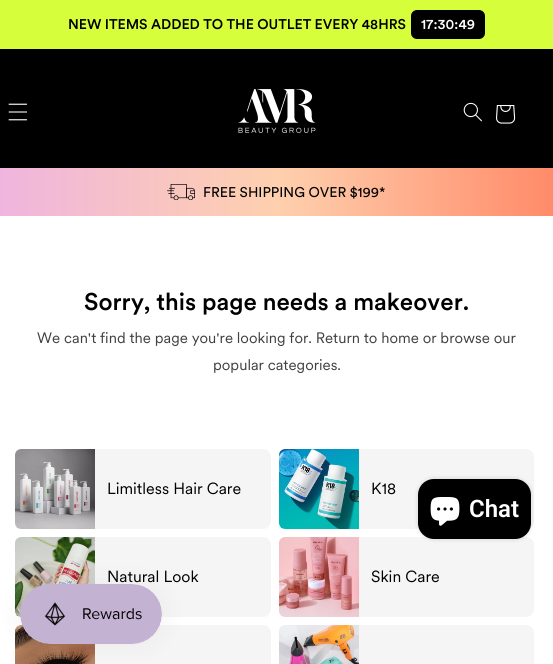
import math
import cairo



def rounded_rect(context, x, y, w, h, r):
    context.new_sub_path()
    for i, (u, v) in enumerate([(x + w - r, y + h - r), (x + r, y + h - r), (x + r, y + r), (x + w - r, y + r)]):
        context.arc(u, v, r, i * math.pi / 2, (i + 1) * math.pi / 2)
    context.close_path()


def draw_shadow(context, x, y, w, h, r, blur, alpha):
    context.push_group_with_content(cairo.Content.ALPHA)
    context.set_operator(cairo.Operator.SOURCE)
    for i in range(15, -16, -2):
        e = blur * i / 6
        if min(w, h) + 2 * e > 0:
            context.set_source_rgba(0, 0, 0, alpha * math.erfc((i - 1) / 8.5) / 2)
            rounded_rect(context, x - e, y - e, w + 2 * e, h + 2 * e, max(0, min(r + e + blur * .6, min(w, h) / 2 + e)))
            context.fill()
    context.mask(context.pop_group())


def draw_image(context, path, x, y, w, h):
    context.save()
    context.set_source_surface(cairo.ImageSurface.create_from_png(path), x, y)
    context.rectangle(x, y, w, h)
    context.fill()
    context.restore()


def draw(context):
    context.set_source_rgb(1, 1, 1)
    context.paint()
    context.set_source_rgb(214 / 255, 254 / 255, 59 / 255)
    context.rectangle(0, 0, 553, 49)
    context.fill()
    context.set_source_rgb(0, 0, 0)
    rounded_rect(context, 411, 10, 74, 29, 6)
    context.fill()
    context.rectangle(0, 49, 553, 119)
    context.fill()
    draw_image(context, "images/1.png", 8, 103, 20, 18)
    draw_image(context, "images/2.png", 238, 89, 78, 44)
    draw_image(context, "images/3.png", 463, 102, 19, 20)
    draw_image(context, "images/4.png", 496, 105, 20, 19)
    gradient = cairo.LinearGradient(0, 192, 553, 192)
    gradient.add_color_stop_rgba(0, 240 / 255, 181 / 255, 222 / 255, 1)
    gradient.add_color_stop_rgba(0.5, 254 / 255, 208 / 255, 174 / 255, 1)
    gradient.add_color_stop_rgba(1, 1, 139 / 255, 105 / 255, 1)
    context.set_source(gradient)
    context.rectangle(0, 168, 553, 48)
    context.fill()
    draw_image(context, "images/5.png", 167, 184, 28, 16)
    context.set_source_rgb(245 / 255, 245 / 255, 245 / 255)
    rounded_rect(context, 15, 449, 256, 80, 8)
    context.fill()
    draw_image(context, "images/6.png", 15, 449, 80, 80)
    rounded_rect(context, 279, 449, 255, 80, 8)
    context.fill()
    draw_image(context, "images/7.png", 279, 449, 80, 80)
    rounded_rect(context, 15, 537, 256, 80, 8)
    context.fill()
    draw_image(context, "images/8.png", 15, 537, 80, 80)
    rounded_rect(context, 279, 537, 255, 80, 8)
    context.fill()
    draw_image(context, "images/9.png", 279, 537, 80, 80)
    rounded_rect(context, 15, 625, 256, 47, 8)
    context.fill()
    draw_image(context, "images/10.png", 15, 625, 80, 39)
    rounded_rect(context, 279, 625, 255, 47, 8)
    context.fill()
    draw_image(context, "images/11.png", 279, 625, 80, 39)
    context.set_source_rgb(0, 0, 0)
    draw_shadow(context, 418, 479, 113, 60, 16, 2.5, 0.15)
    context.set_source_rgb(0, 0, 0)
    rounded_rect(context, 418, 479, 113, 60, 16)
    context.fill()
    draw_image(context, "images/12.png", 430, 497, 30, 29)
    context.set_source_rgb(0, 0, 0)
    draw_shadow(context, 20, 584, 142, 60, 30, 12.5, 0.05)
    draw_image(context, "images/13.png", 20, 584, 142, 60)
    context.select_font_face("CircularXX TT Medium")
    context.set_font_size(14)
    context.set_source_rgb(0, 0, 0)
    context.move_to(68, 29)
    context.show_text("NEW ITEMS ADDED TO THE OUTLET EVERY 48HRS")
    context.set_source_rgb(1, 1, 1)
    context.move_to(421, 29)
    context.show_text("17:30:49")
    context.select_font_face("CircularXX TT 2")
    context.set_source_rgb(0, 0, 0)
    context.move_to(203, 197)
    context.show_text("FREE SHIPPING OVER $199*")
    context.select_font_face("CircularXX TT Medium")
    context.set_font_size(24)
    context.move_to(84, 310)
    context.show_text("Sorry, this page needs a makeover.")
    context.select_font_face("CircularXX TT")
    context.set_font_size(15)
    context.set_source_rgb(64 / 255, 64 / 255, 64 / 255)
    context.move_to(37, 343)
    context.show_text("We can't find the page you're looking for. Return to home or browse our")
    context.move_to(213, 370)
    context.show_text("popular categories.")
    context.set_font_size(16)
    context.set_source_rgb(0, 0, 0)
    context.move_to(107, 494)
    context.show_text("Limitless Hair Care")
    context.set_font_size(15)
    context.set_source_rgb(71 / 255, 177 / 255, 222 / 255)
    context.move_to(279, 467)
    context.show_text("CTA")
    context.set_font_size(16)
    context.set_source_rgb(0, 0, 0)
    context.move_to(371, 494)
    context.show_text("K18")
    context.move_to(107, 582)
    context.show_text("Natural Look")
    context.move_to(371, 582)
    context.show_text("Skin Care")
    context.select_font_face("Roboto SemiBold")
    context.set_font_size(24)
    context.set_source_rgb(1, 1, 1)
    context.move_to(469, 517)
    context.show_text("Chat")


surface = cairo.ImageSurface(cairo.Format.RGB24, 553, 664)
context = cairo.Context(surface)
options = cairo.FontOptions()
options.set_hint_metrics(cairo.HintMetrics.OFF)
options.set_hint_style(cairo.HintStyle.NONE)
context.set_font_options(options)
context.set_miter_limit(4)
draw(context)
surface.write_to_png("out.png")
